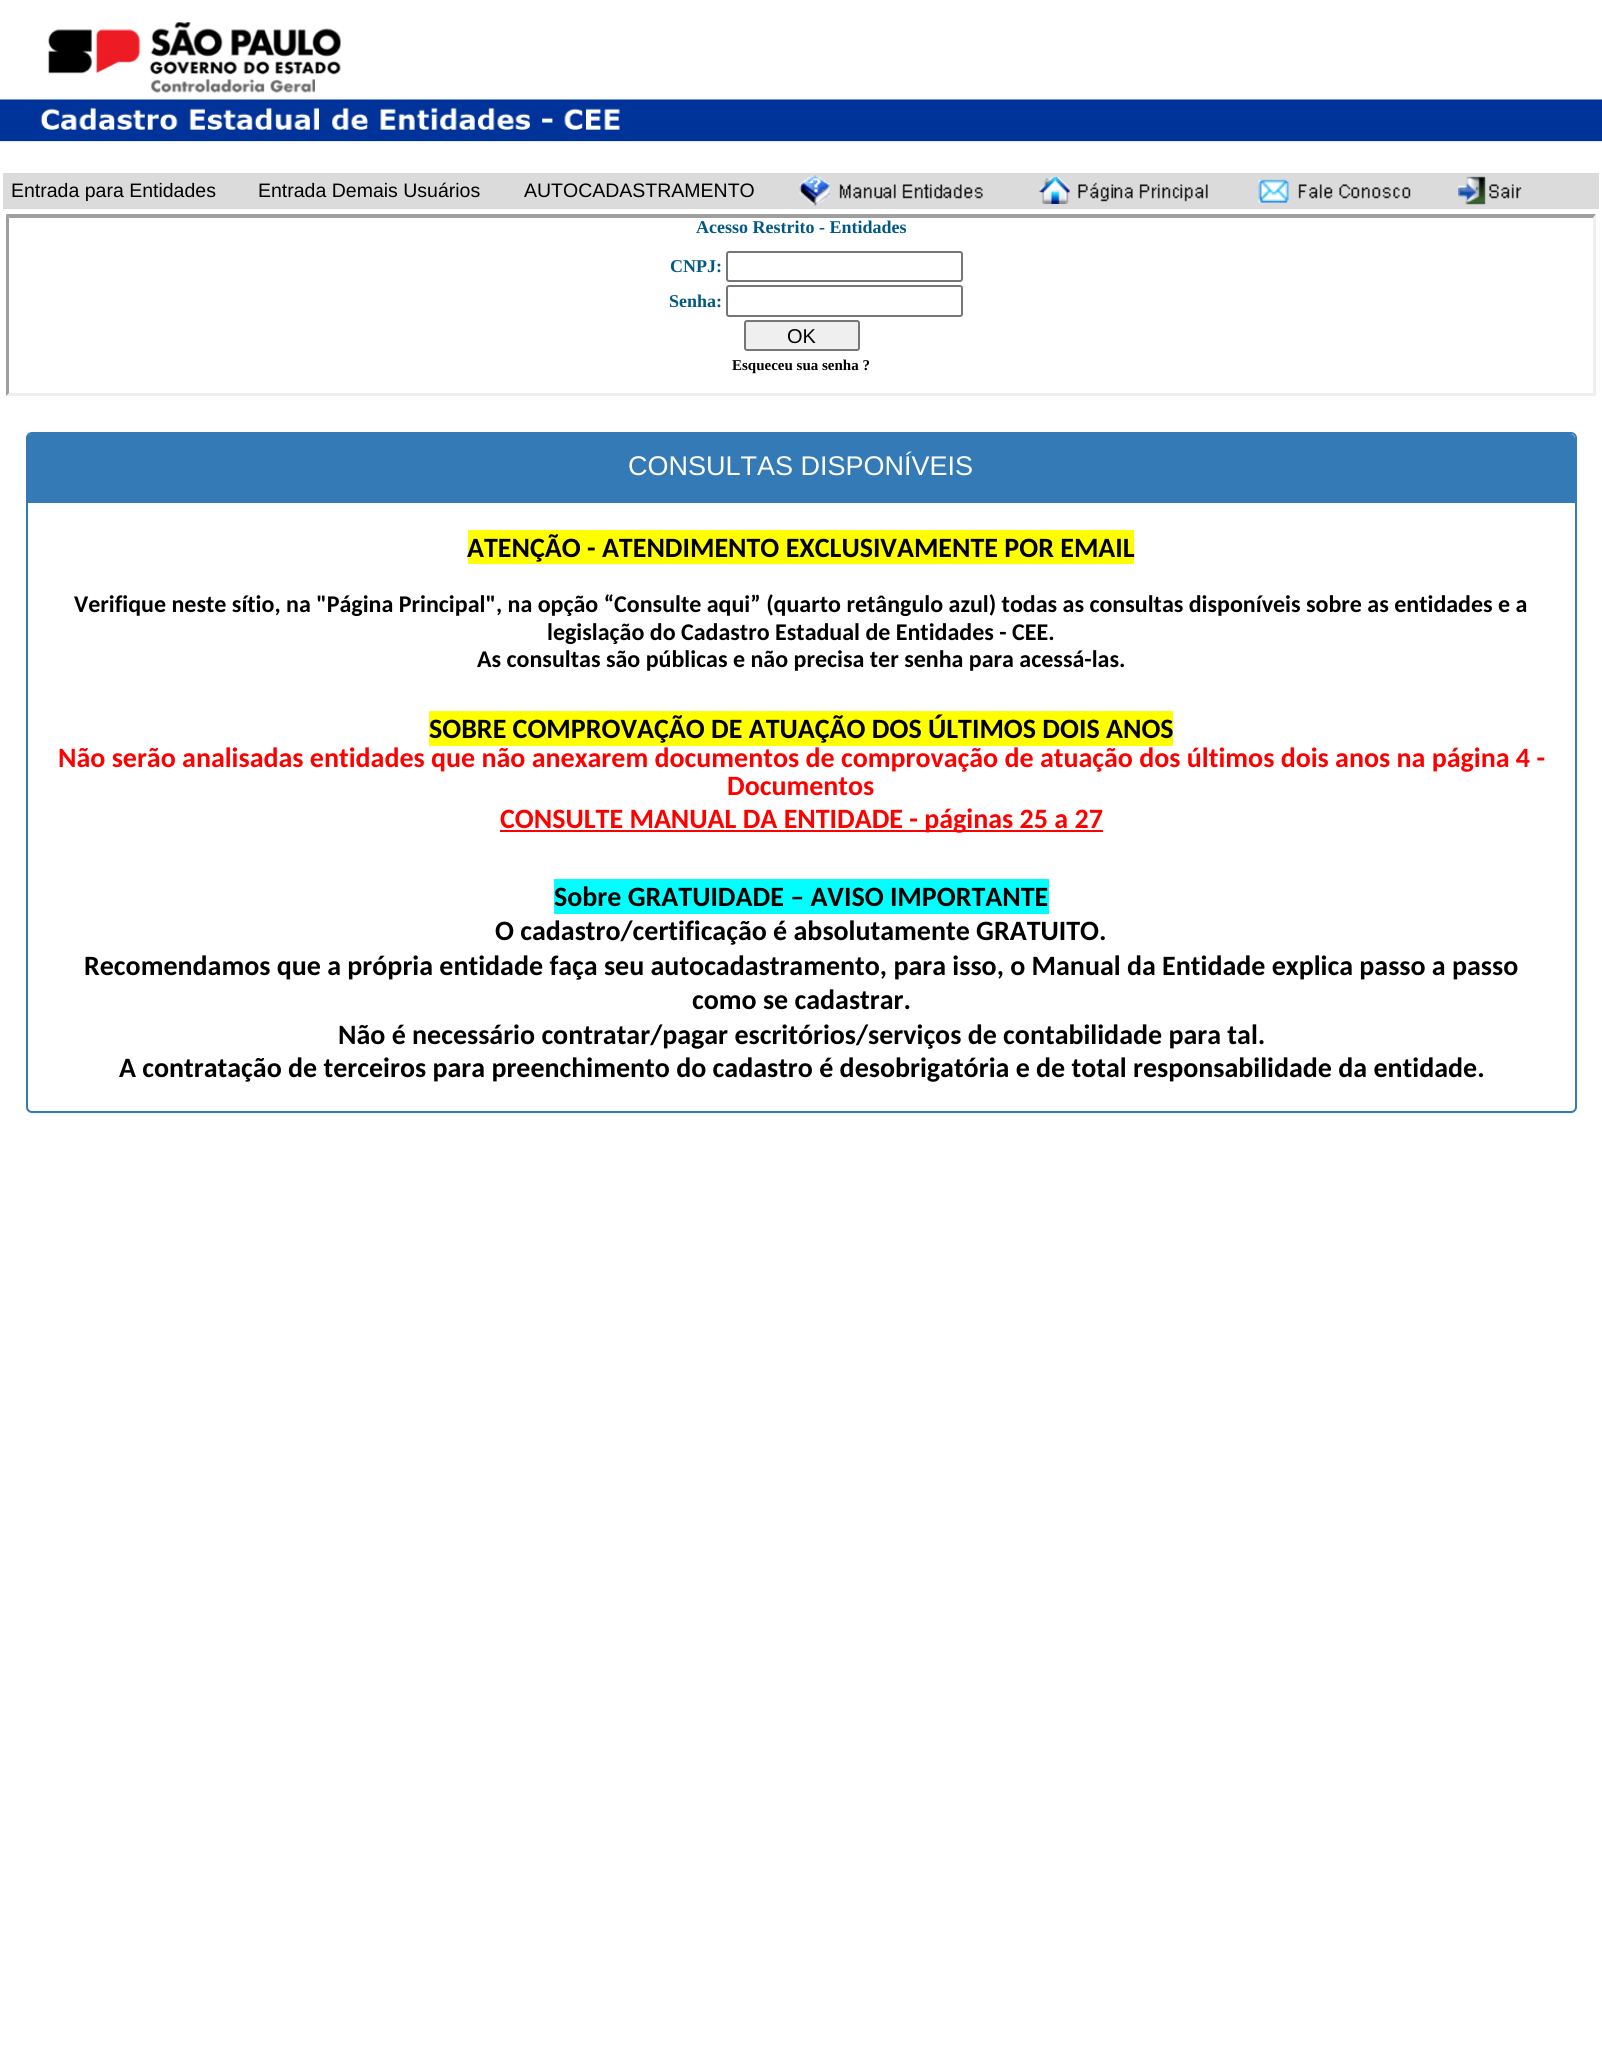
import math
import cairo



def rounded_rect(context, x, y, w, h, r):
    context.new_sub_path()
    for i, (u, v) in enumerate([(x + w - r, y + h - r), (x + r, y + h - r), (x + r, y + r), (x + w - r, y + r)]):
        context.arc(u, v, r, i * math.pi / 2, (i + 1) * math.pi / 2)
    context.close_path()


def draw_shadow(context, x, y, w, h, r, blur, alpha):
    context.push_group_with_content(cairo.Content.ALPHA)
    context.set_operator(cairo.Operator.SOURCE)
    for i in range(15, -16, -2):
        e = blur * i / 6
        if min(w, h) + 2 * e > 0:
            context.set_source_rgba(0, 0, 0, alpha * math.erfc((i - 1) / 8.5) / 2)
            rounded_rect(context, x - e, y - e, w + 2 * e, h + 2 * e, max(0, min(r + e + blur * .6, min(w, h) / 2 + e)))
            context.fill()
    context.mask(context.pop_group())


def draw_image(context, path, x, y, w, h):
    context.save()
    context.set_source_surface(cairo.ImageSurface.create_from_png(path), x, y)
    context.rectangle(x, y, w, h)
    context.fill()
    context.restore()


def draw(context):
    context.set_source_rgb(1, 1, 1)
    context.paint()
    draw_image(context, "images/1.png", 0, 22, 1602, 120)
    context.set_source_rgb(219 / 255, 219 / 255, 219 / 255)
    context.rectangle(3, 173, 1596, 36)
    context.fill()
    draw_image(context, "images/2.png", 799, 175, 184, 31)
    draw_image(context, "images/3.png", 1039, 177, 169, 27)
    draw_image(context, "images/4.png", 1258, 179, 153, 24)
    draw_image(context, "images/5.png", 1458, 176, 64, 29)
    context.set_source_rgb(159 / 255, 159 / 255, 159 / 255)
    context.new_path()
    context.move_to(6, 214)
    context.line_to(1596, 214)
    context.line_to(1593, 218)
    context.line_to(9, 218)
    context.close_path()
    context.fill()
    context.set_source_rgb(239 / 255, 239 / 255, 239 / 255)
    context.new_path()
    context.move_to(1596, 214)
    context.line_to(1596, 396)
    context.line_to(1593, 393)
    context.line_to(1593, 218)
    context.close_path()
    context.fill()
    context.new_path()
    context.move_to(1596, 396)
    context.line_to(6, 396)
    context.line_to(9, 393)
    context.line_to(1593, 393)
    context.close_path()
    context.fill()
    context.set_source_rgb(159 / 255, 159 / 255, 159 / 255)
    context.new_path()
    context.move_to(6, 396)
    context.line_to(6, 214)
    context.line_to(9, 218)
    context.line_to(9, 393)
    context.close_path()
    context.fill()
    rounded_rect(context, 727, 252, 235, 29, 2)
    context.set_source_rgb(118 / 255, 118 / 255, 118 / 255)
    context.stroke()
    rounded_rect(context, 727, 286, 235, 30, 2)
    context.stroke()
    context.set_source_rgb(239 / 255, 239 / 255, 239 / 255)
    rounded_rect(context, 745, 321, 114, 29, 2)
    context.fill_preserve()
    context.set_source_rgb(118 / 255, 118 / 255, 118 / 255)
    context.stroke()
    context.set_source_rgb(0, 0, 0)
    draw_shadow(context, 26, 434, 1551, 681, 6, 1, 0.05)
    context.set_source_rgb(1, 1, 1)
    rounded_rect(context, 27, 433, 1549, 679, 5)
    context.fill_preserve()
    context.set_source_rgb(51 / 255, 122 / 255, 183 / 255)
    context.stroke()
    context.new_path()
    context.move_to(32, 434)
    context.line_to(1570, 434)
    context.curve_to(1573, 434, 1575, 436, 1575, 439)
    context.line_to(1575, 503)
    context.line_to(27, 503)
    context.line_to(27, 439)
    context.curve_to(27, 436, 29, 434, 32, 434)
    context.close_path()
    context.fill()
    context.set_source_rgb(1, 1, 0)
    context.rectangle(468, 530, 666, 34)
    context.fill()
    context.rectangle(429, 711, 744, 35)
    context.fill()
    context.set_source_rgb(1, 0, 0)
    context.rectangle(500, 830, 603, 2)
    context.fill()
    context.set_source_rgb(0, 1, 1)
    context.rectangle(554, 879, 495, 35)
    context.fill()
    context.select_font_face("Liberation Sans")
    context.set_font_size(19.5)
    context.set_source_rgb(0, 0, 0)
    context.move_to(11, 197)
    context.show_text("Entrada para Entidades")
    context.move_to(258, 197)
    context.show_text("Entrada Demais Usuários")
    context.move_to(524, 197)
    context.show_text("AUTOCADASTRAMENTO")
    context.select_font_face("Liberation Serif", cairo.FontSlant.NORMAL, cairo.FontWeight.BOLD)
    context.set_font_size(18)
    context.set_source_rgb(0, 88 / 255, 131 / 255)
    context.move_to(696, 233)
    context.show_text("Acesso Restrito - Entidades")
    context.move_to(670, 272)
    context.show_text("CNPJ:")
    context.move_to(669, 307)
    context.show_text("Senha:")
    context.select_font_face("Liberation Sans")
    context.set_font_size(20)
    context.set_source_rgb(0, 0, 0)
    context.move_to(787, 343)
    context.show_text("OK")
    context.select_font_face("Liberation Serif", cairo.FontSlant.NORMAL, cairo.FontWeight.BOLD)
    context.set_font_size(15)
    context.move_to(732, 370)
    context.show_text("Esqueceu sua senha ?")
    context.select_font_face("Liberation Sans")
    context.set_font_size(27)
    context.set_source_rgb(1, 1, 1)
    context.move_to(628, 475)
    context.show_text("CONSULTAS DISPONÍVEIS")
    context.select_font_face("Carlito", cairo.FontSlant.NORMAL, cairo.FontWeight.BOLD)
    context.set_font_size(28)
    context.set_source_rgb(0, 0, 0)
    context.move_to(467, 557)
    context.show_text("ATENÇÃO - ATENDIMENTO EXCLUSIVAMENTE POR EMAIL")
    context.set_font_size(24)
    context.move_to(74, 612)
    context.show_text("Verifique neste sítio, na \"Página Principal\", na opção “Consulte aqui” (quarto retângulo azul) todas as consultas disponíveis sobre as entidades e a")
    context.move_to(547, 640)
    context.show_text("legislação do Cadastro Estadual de Entidades - CEE.")
    context.move_to(477, 667)
    context.show_text("As consultas são públicas e não precisa ter senha para acessá-las.")
    context.set_font_size(28)
    context.move_to(429, 738)
    context.show_text("SOBRE COMPROVAÇÃO DE ATUAÇÃO DOS ÚLTIMOS DOIS ANOS")
    context.set_source_rgb(1, 0, 0)
    context.move_to(58, 767)
    context.show_text("Não serão analisadas entidades que não anexarem documentos de comprovação de atuação dos últimos dois anos na página 4 -")
    context.move_to(727, 795)
    context.show_text("Documentos")
    context.move_to(500, 828)
    context.show_text("CONSULTE MANUAL DA ENTIDADE - páginas 25 a 27")
    context.set_source_rgb(0, 0, 0)
    context.move_to(554, 906)
    context.show_text("Sobre GRATUIDADE – AVISO IMPORTANTE")
    context.move_to(495, 940)
    context.show_text("O cadastro/certificação é absolutamente GRATUITO.")
    context.move_to(84, 975)
    context.show_text("Recomendamos que a própria entidade faça seu autocadastramento, para isso, o Manual da Entidade explica passo a passo")
    context.move_to(692, 1009)
    context.show_text("como se cadastrar.")
    context.move_to(338, 1044)
    context.show_text("Não é necessário contratar/pagar escritórios/serviços de contabilidade para tal.")
    context.move_to(119, 1077)
    context.show_text("A contratação de terceiros para preenchimento do cadastro é desobrigatória e de total responsabilidade da entidade.")


surface = cairo.ImageSurface(cairo.Format.RGB24, 1602, 2049)
context = cairo.Context(surface)
options = cairo.FontOptions()
options.set_hint_metrics(cairo.HintMetrics.OFF)
options.set_hint_style(cairo.HintStyle.NONE)
context.set_font_options(options)
context.set_miter_limit(4)
draw(context)
surface.write_to_png("out.png")
